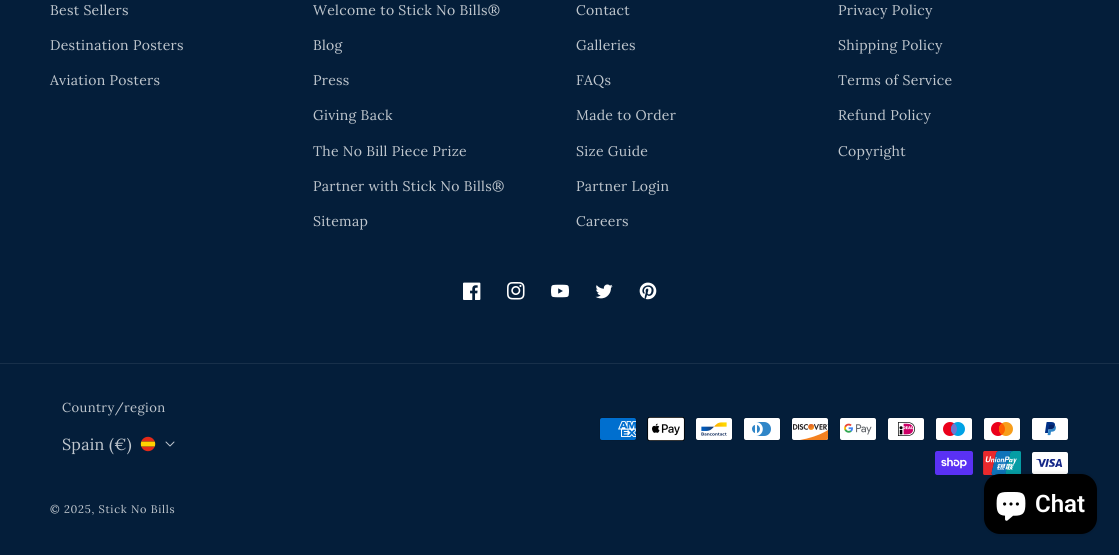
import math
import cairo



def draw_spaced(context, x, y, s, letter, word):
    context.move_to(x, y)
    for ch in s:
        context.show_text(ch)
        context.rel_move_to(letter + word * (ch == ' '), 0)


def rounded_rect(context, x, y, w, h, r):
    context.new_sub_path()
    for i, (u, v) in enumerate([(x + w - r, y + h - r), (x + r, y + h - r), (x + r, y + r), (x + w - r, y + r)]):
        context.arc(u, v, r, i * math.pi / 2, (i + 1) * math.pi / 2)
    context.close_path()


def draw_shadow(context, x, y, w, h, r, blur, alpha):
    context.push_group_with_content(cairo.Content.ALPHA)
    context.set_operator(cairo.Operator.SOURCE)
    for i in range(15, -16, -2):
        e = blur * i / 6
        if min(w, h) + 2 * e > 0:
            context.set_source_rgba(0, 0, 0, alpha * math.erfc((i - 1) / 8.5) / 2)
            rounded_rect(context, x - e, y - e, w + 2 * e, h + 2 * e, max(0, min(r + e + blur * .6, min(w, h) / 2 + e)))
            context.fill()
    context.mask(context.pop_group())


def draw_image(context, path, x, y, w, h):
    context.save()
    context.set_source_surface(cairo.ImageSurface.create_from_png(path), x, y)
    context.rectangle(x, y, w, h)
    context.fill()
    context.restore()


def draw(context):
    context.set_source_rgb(4 / 255, 30 / 255, 58 / 255)
    context.paint()
    draw_image(context, "images/1.png", 463, 282, 18, 18)
    draw_image(context, "images/2.png", 507, 282, 18, 18)
    draw_image(context, "images/3.png", 551, 284, 18, 14)
    draw_image(context, "images/4.png", 595, 284, 18, 15)
    draw_image(context, "images/5.png", 639, 282, 18, 18)
    context.set_source_rgb(24 / 255, 48 / 255, 74 / 255)
    context.rectangle(0, 363, 1119, 1)
    context.fill()
    draw_image(context, "images/6.png", 140, 436, 16, 16)
    draw_image(context, "images/7.png", 165, 441, 10, 6)
    draw_image(context, "images/8.png", 599, 417, 38, 24)
    draw_image(context, "images/9.png", 647, 417, 38, 24)
    draw_image(context, "images/10.png", 695, 417, 38, 24)
    draw_image(context, "images/11.png", 743, 417, 38, 24)
    draw_image(context, "images/12.png", 791, 417, 38, 24)
    draw_image(context, "images/13.png", 839, 417, 38, 24)
    draw_image(context, "images/14.png", 887, 417, 38, 24)
    draw_image(context, "images/15.png", 935, 417, 38, 24)
    draw_image(context, "images/16.png", 983, 417, 38, 24)
    draw_image(context, "images/17.png", 1031, 417, 38, 24)
    draw_image(context, "images/18.png", 935, 451, 38, 24)
    draw_image(context, "images/19.png", 983, 451, 38, 24)
    draw_image(context, "images/20.png", 1031, 451, 38, 23)
    context.set_source_rgb(0, 0, 0)
    draw_shadow(context, 984, 474, 113, 60, 16, 2.5, 0.15)
    context.set_source_rgb(0, 0, 0)
    rounded_rect(context, 984, 474, 113, 60, 16)
    context.fill()
    draw_image(context, "images/21.png", 996, 492, 30, 29)
    context.select_font_face("Lora")
    context.set_font_size(14)
    context.set_source_rgb(192 / 255, 199 / 255, 206 / 255)
    draw_spaced(context, 50, 15, "Best Sellers", 0.3, 0)
    draw_spaced(context, 50, 50, "Destination Posters", 0.3, 0)
    draw_spaced(context, 50, 85, "Aviation Posters", 0.3, 0)
    draw_spaced(context, 313, 15, "Welcome to Stick No Bills®", 0.3, 0)
    draw_spaced(context, 313, 50, "Blog", 0.3, 0)
    draw_spaced(context, 313, 85, "Press", 0.3, 0)
    draw_spaced(context, 313, 120, "Giving Back", 0.3, 0)
    draw_spaced(context, 313, 156, "The No Bill Piece Prize", 0.3, 0)
    draw_spaced(context, 313, 191, "Partner with Stick No Bills®", 0.3, 0)
    draw_spaced(context, 313, 226, "Sitemap", 0.3, 0)
    draw_spaced(context, 576, 15, "Contact", 0.3, 0)
    draw_spaced(context, 576, 50, "Galleries", 0.3, 0)
    draw_spaced(context, 576, 85, "FAQs", 0.3, 0)
    draw_spaced(context, 576, 120, "Made to Order", 0.3, 0)
    draw_spaced(context, 576, 156, "Size Guide", 0.3, 0)
    draw_spaced(context, 576, 191, "Partner Login", 0.3, 0)
    draw_spaced(context, 576, 226, "Careers", 0.3, 0)
    draw_spaced(context, 838, 15, "Privacy Policy", 0.3, 0)
    draw_spaced(context, 838, 50, "Shipping Policy", 0.3, 0)
    draw_spaced(context, 838, 85, "Terms of Service", 0.3, 0)
    draw_spaced(context, 838, 120, "Refund Policy", 0.3, 0)
    draw_spaced(context, 838, 156, "Copyright", 0.3, 0)
    context.set_font_size(13)
    draw_spaced(context, 62, 412, "Country/region", 0.4, 0)
    context.set_font_size(16)
    draw_spaced(context, 62, 450, "Spain (€)", 0.3, 0)
    context.set_font_size(11)
    draw_spaced(context, 50, 513, "© 2025, Stick No Bills", 0.7, 0)
    context.select_font_face("Roboto SemiBold")
    context.set_font_size(24)
    context.set_source_rgb(1, 1, 1)
    context.move_to(1035, 512)
    context.show_text("Chat")


surface = cairo.ImageSurface(cairo.Format.RGB24, 1119, 555)
context = cairo.Context(surface)
options = cairo.FontOptions()
options.set_hint_metrics(cairo.HintMetrics.OFF)
options.set_hint_style(cairo.HintStyle.NONE)
context.set_font_options(options)
context.set_miter_limit(4)
draw(context)
surface.write_to_png("out.png")
